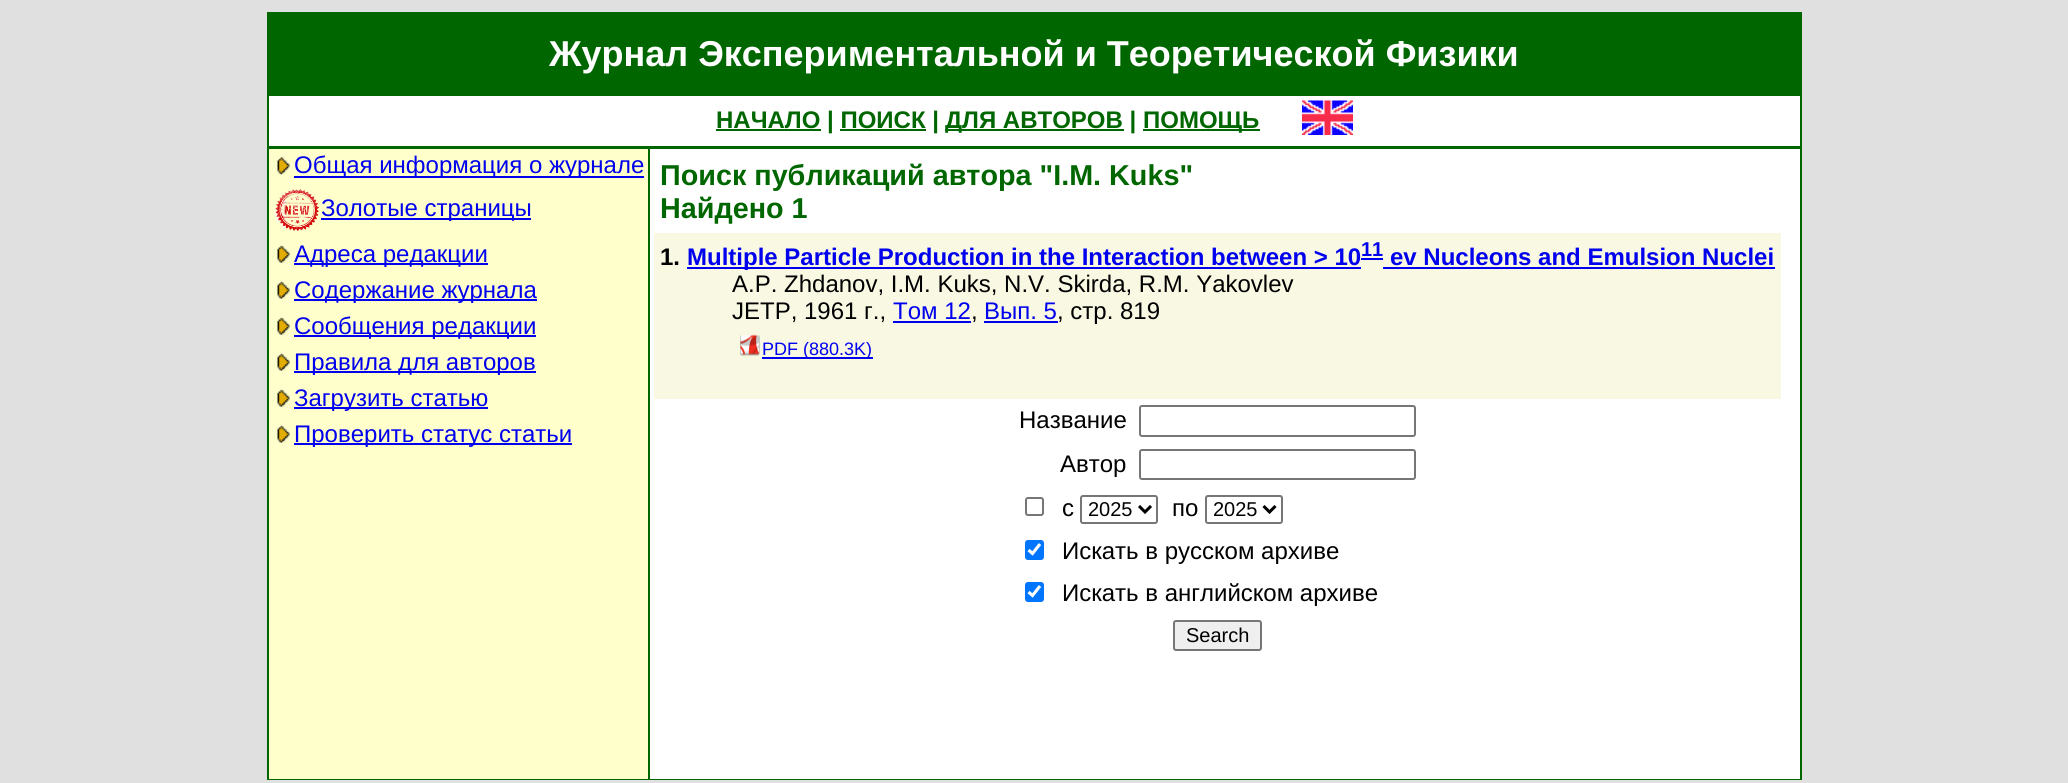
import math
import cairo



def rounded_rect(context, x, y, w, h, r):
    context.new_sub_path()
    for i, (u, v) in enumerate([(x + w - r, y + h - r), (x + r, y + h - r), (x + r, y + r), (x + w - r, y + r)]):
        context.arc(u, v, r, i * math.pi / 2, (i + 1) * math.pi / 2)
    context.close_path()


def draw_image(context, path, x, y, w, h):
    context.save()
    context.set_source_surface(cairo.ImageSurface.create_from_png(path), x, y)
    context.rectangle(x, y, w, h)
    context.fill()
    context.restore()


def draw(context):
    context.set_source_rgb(224 / 255, 224 / 255, 224 / 255)
    context.paint()
    context.set_source_rgb(0, 102 / 255, 0)
    context.rectangle(267, 12, 1535, 768)
    context.fill()
    context.set_source_rgb(1, 1, 1)
    context.rectangle(269, 96, 1531, 683)
    context.fill()
    context.set_source_rgb(0, 102 / 255, 0)
    context.rectangle(716, 129, 105, 2)
    context.fill()
    context.rectangle(945, 129, 179, 2)
    context.fill()
    context.rectangle(1143, 129, 117, 2)
    context.fill()
    context.rectangle(840, 129, 86, 2)
    context.fill()
    draw_image(context, "images/1.png", 1302, 100, 51, 35)
    context.rectangle(269, 146, 1531, 3)
    context.fill()
    context.set_source_rgb(1, 1, 204 / 255)
    context.rectangle(269, 149, 379, 630)
    context.fill()
    draw_image(context, "images/2.png", 276, 157, 14, 18)
    context.set_source_rgb(0, 0, 238 / 255)
    context.rectangle(294, 176, 350, 2)
    context.fill()
    draw_image(context, "images/3.png", 274, 189, 45, 42)
    context.rectangle(321, 218, 210, 2)
    context.fill()
    draw_image(context, "images/4.png", 276, 245, 14, 18)
    context.rectangle(294, 263, 194, 2)
    context.fill()
    draw_image(context, "images/4.png", 276, 281, 14, 18)
    context.rectangle(294, 299, 243, 2)
    context.fill()
    draw_image(context, "images/4.png", 276, 317, 14, 18)
    context.rectangle(294, 335, 242, 2)
    context.fill()
    draw_image(context, "images/4.png", 276, 353, 14, 18)
    context.rectangle(294, 371, 242, 2)
    context.fill()
    draw_image(context, "images/4.png", 276, 389, 14, 18)
    context.rectangle(294, 407, 194, 2)
    context.fill()
    draw_image(context, "images/4.png", 276, 425, 14, 18)
    context.rectangle(294, 443, 278, 2)
    context.fill()
    context.set_source_rgb(0, 102 / 255, 0)
    context.rectangle(648, 149, 2, 630)
    context.fill()
    context.set_source_rgb(248 / 255, 248 / 255, 227 / 255)
    context.rectangle(654, 233, 1127, 166)
    context.fill()
    context.set_source_rgb(0, 0, 238 / 255)
    context.rectangle(687, 267, 674, 2)
    context.fill()
    context.rectangle(1361, 258, 22, 2)
    context.fill()
    context.rectangle(1383, 267, 392, 2)
    context.fill()
    context.rectangle(893, 321, 78, 2)
    context.fill()
    context.rectangle(984, 321, 74, 2)
    context.fill()
    draw_image(context, "images/5.png", 740, 334, 20, 22)
    context.rectangle(762, 357, 111, 2)
    context.fill()
    rounded_rect(context, 1140, 406, 275, 30, 2)
    context.set_source_rgb(118 / 255, 118 / 255, 118 / 255)
    context.stroke()
    rounded_rect(context, 1140, 450, 275, 29, 2)
    context.stroke()
    rounded_rect(context, 1026, 498, 17, 17, 2)
    context.stroke()
    rounded_rect(context, 1081, 496, 76, 27, 2)
    context.stroke()
    context.new_path()
    context.move_to(1139, 506)
    context.line_to(1145, 512)
    context.line_to(1151, 506)
    context.set_source_rgb(0, 0, 0)
    context.set_line_width(3)
    context.stroke()
    rounded_rect(context, 1206, 496, 76, 27, 2)
    context.set_source_rgb(118 / 255, 118 / 255, 118 / 255)
    context.set_line_width(2)
    context.stroke()
    context.new_path()
    context.move_to(1263.5, 506)
    context.line_to(1269.5, 512)
    context.line_to(1275.5, 506)
    context.set_source_rgb(0, 0, 0)
    context.set_line_width(3)
    context.stroke()
    context.set_source_rgb(0, 117 / 255, 1)
    rounded_rect(context, 1025, 540, 19, 20, 3)
    context.fill()
    context.new_path()
    context.move_to(1028.5, 550)
    context.line_to(1032.5, 553.5)
    context.line_to(1040, 544)
    context.set_source_rgb(1, 1, 1)
    context.set_line_width(3.1)
    context.stroke()
    context.set_source_rgb(0, 117 / 255, 1)
    rounded_rect(context, 1025, 582, 19, 20, 3)
    context.fill()
    context.new_path()
    context.move_to(1028.5, 592)
    context.line_to(1032.5, 595.5)
    context.line_to(1040, 586)
    context.set_source_rgb(1, 1, 1)
    context.stroke()
    context.set_source_rgb(239 / 255, 239 / 255, 239 / 255)
    rounded_rect(context, 1174, 621, 87, 29, 2)
    context.fill_preserve()
    context.set_source_rgb(118 / 255, 118 / 255, 118 / 255)
    context.set_line_width(2)
    context.stroke()
    context.select_font_face("Liberation Sans", cairo.FontSlant.NORMAL, cairo.FontWeight.BOLD)
    context.set_font_size(36)
    context.set_source_rgb(1, 1, 1)
    context.move_to(549, 66)
    context.show_text("Журнал Экспериментальной и Теоретической Физики")
    context.set_font_size(24)
    context.set_source_rgb(0, 102 / 255, 0)
    context.move_to(716, 128)
    context.show_text("НАЧАЛО | ПОИСК |")
    context.move_to(945, 128)
    context.show_text("ДЛЯ АВТОРОВ |")
    context.move_to(1143, 128)
    context.show_text("ПОМОЩЬ")
    context.select_font_face("Liberation Sans")
    context.set_source_rgb(0, 0, 238 / 255)
    context.move_to(294, 173)
    context.show_text("Общая информация о журнале")
    context.move_to(321, 216)
    context.show_text("Золотые страницы")
    context.move_to(294, 262)
    context.show_text("Адреса редакции")
    context.move_to(294, 298)
    context.show_text("Содержание журнала")
    context.move_to(294, 334)
    context.show_text("Сообщения редакции")
    context.move_to(294, 370)
    context.show_text("Правила для авторов")
    context.move_to(294, 406)
    context.show_text("Загрузить статью")
    context.move_to(294, 442)
    context.show_text("Проверить статус статьи")
    context.select_font_face("Liberation Sans", cairo.FontSlant.NORMAL, cairo.FontWeight.BOLD)
    context.set_font_size(28.75)
    context.set_source_rgb(0, 102 / 255, 0)
    context.move_to(660, 185)
    context.show_text("Поиск публикаций автора \"I.M. Kuks\"")
    context.move_to(660, 218)
    context.show_text("Найдено 1")
    context.set_font_size(24)
    context.set_source_rgb(0, 0, 0)
    context.move_to(660, 265)
    context.show_text("1.")
    context.set_source_rgb(0, 0, 238 / 255)
    context.move_to(687, 265)
    context.show_text("Multiple Particle Production in the Interaction between > 10")
    context.set_font_size(20)
    context.move_to(1361, 256)
    context.show_text("11")
    context.set_font_size(24)
    context.move_to(1390, 265)
    context.show_text("ev Nucleons and Emulsion Nuclei")
    context.select_font_face("Liberation Sans")
    context.set_source_rgb(0, 0, 0)
    context.move_to(732, 292)
    context.show_text("A.P. Zhdanov, I.M. Kuks, N.V. Skirda, R.M. Yakovlev")
    context.move_to(732, 319)
    context.show_text("JETP, 1961 г.,")
    context.set_source_rgb(0, 0, 238 / 255)
    context.move_to(893, 319)
    context.show_text("Том 12")
    context.set_source_rgb(0, 0, 0)
    context.move_to(971, 319)
    context.show_text(",")
    context.set_source_rgb(0, 0, 238 / 255)
    context.move_to(984, 319)
    context.show_text("Вып. 5")
    context.set_source_rgb(0, 0, 0)
    context.move_to(1057, 319)
    context.show_text(", стр. 819")
    context.set_font_size(18)
    context.set_source_rgb(0, 0, 238 / 255)
    context.move_to(762, 355)
    context.show_text("PDF (880.3K)")
    context.set_font_size(24)
    context.set_source_rgb(0, 0, 0)
    context.move_to(1019, 428)
    context.show_text("Название")
    context.move_to(1060, 472)
    context.show_text("Автор")
    context.move_to(1062, 516)
    context.show_text("с")
    context.set_font_size(20)
    context.move_to(1088, 516)
    context.show_text("2025")
    context.set_font_size(24)
    context.move_to(1172, 516)
    context.show_text("по")
    context.set_font_size(20)
    context.move_to(1213, 516)
    context.show_text("2025")
    context.set_font_size(24)
    context.move_to(1062, 559)
    context.show_text("Искать в русском архиве")
    context.move_to(1062, 601)
    context.show_text("Искать в английском архиве")
    context.set_font_size(20)
    context.move_to(1186, 642)
    context.show_text("Search")


surface = cairo.ImageSurface(cairo.Format.RGB24, 2068, 783)
context = cairo.Context(surface)
options = cairo.FontOptions()
options.set_hint_metrics(cairo.HintMetrics.OFF)
options.set_hint_style(cairo.HintStyle.NONE)
context.set_font_options(options)
context.set_miter_limit(4)
draw(context)
surface.write_to_png("out.png")
